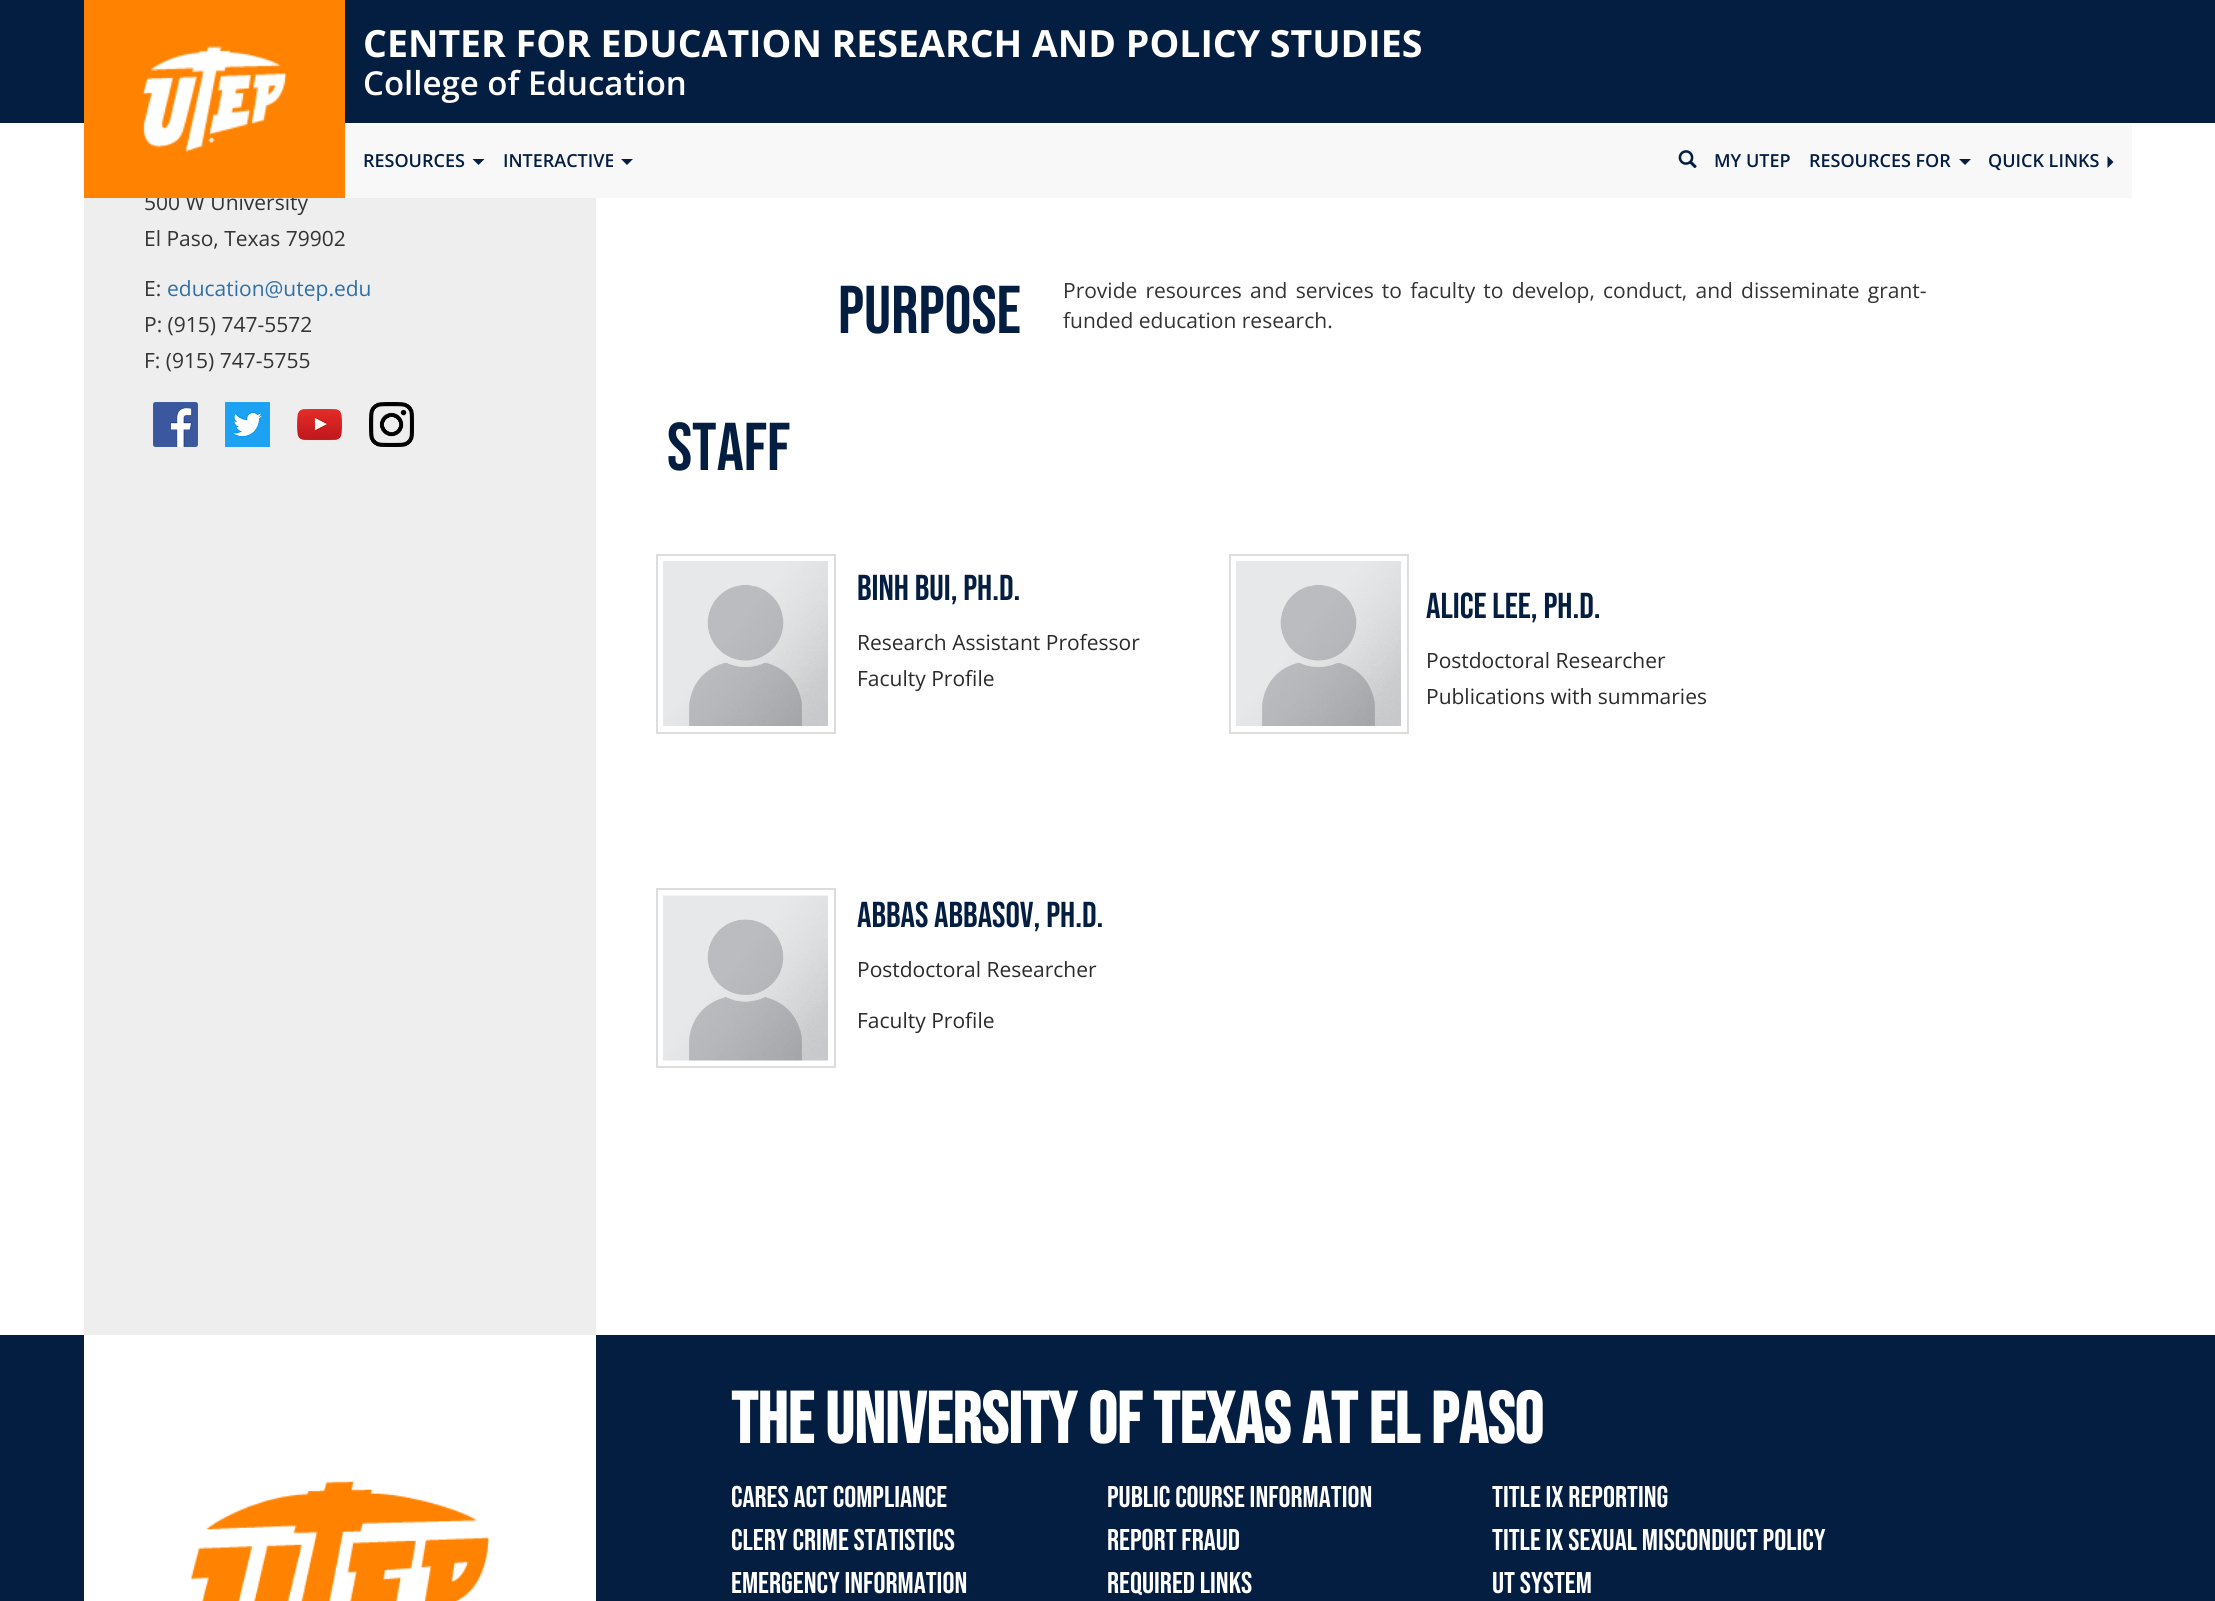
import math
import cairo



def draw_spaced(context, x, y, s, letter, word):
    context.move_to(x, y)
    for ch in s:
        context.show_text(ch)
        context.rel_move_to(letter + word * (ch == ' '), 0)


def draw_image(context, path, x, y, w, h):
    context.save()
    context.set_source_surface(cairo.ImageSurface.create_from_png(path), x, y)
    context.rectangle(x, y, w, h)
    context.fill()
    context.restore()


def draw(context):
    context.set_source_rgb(1, 1, 1)
    context.paint()
    context.set_source_rgb(4 / 255, 30 / 255, 66 / 255)
    context.rectangle(0, 0, 2215, 123)
    context.fill()
    context.set_source_rgb(248 / 255, 248 / 255, 248 / 255)
    context.rectangle(345, 123, 1787, 75)
    context.fill()
    context.set_source_rgb(4 / 255, 30 / 255, 66 / 255)
    context.new_path()
    context.move_to(472.5, 159)
    context.line_to(484.5, 159)
    context.line_to(478.5, 165)
    context.close_path()
    context.fill()
    context.new_path()
    context.move_to(621, 159)
    context.line_to(633, 159)
    context.line_to(627, 165)
    context.close_path()
    context.fill()
    draw_image(context, "images/2.png", 1678, 150, 19, 19)
    context.new_path()
    context.move_to(1959, 159)
    context.line_to(1971, 159)
    context.line_to(1965, 165)
    context.close_path()
    context.fill()
    context.new_path()
    context.move_to(2107.5, 168)
    context.line_to(2107.5, 156)
    context.line_to(2113.5, 162)
    context.close_path()
    context.fill()
    context.set_source_rgb(238 / 255, 238 / 255, 238 / 255)
    context.rectangle(84, 198, 512, 1137)
    context.fill()
    draw_image(context, "images/3.png", 153, 402, 45, 45)
    draw_image(context, "images/4.png", 225, 402, 45, 45)
    draw_image(context, "images/5.png", 297, 409, 45, 32)
    draw_image(context, "images/6.png", 369, 402, 45, 45)
    context.rectangle(657, 555, 178, 178)
    context.set_source_rgb(221 / 255, 221 / 255, 221 / 255)
    context.stroke()
    draw_image(context, "images/7.png", 663, 561, 165, 165)
    context.rectangle(1230, 555, 178, 178)
    context.stroke()
    draw_image(context, "images/7.png", 1236, 561, 165, 165)
    context.rectangle(657, 889, 178, 178)
    context.stroke()
    draw_image(context, "images/8.png", 663, 895, 165, 166)
    context.set_source_rgb(4 / 255, 30 / 255, 66 / 255)
    context.rectangle(0, 1335, 2215, 266)
    context.fill()
    context.set_source_rgb(1, 1, 1)
    context.rectangle(84, 1335, 512, 266)
    context.fill()
    draw_image(context, "images/9.png", 190, 1481, 300, 120)
    context.select_font_face("Open Sans", cairo.FontSlant.NORMAL, cairo.FontWeight.BOLD)
    context.set_font_size(37.5)
    context.move_to(363, 57)
    context.show_text("CENTER FOR EDUCATION RESEARCH AND POLICY STUDIES")
    context.select_font_face("Open Sans SemiBold")
    context.set_font_size(33)
    context.move_to(363, 95)
    context.show_text("College of Education")
    context.set_font_size(18)
    context.set_source_rgb(4 / 255, 30 / 255, 66 / 255)
    context.move_to(363, 167)
    context.show_text("RESOURCES")
    context.move_to(503, 167)
    context.show_text("INTERACTIVE")
    context.move_to(1714, 167)
    context.show_text("MY UTEP")
    context.move_to(1809, 167)
    context.show_text("RESOURCES FOR")
    context.move_to(1988, 167)
    context.show_text("QUICK LINKS")
    context.select_font_face("Open Sans")
    context.set_font_size(21)
    context.set_source_rgb(51 / 255, 51 / 255, 51 / 255)
    context.move_to(144, 210)
    context.show_text("500 W University")
    context.set_source_rgb(1, 130 / 255, 0)
    context.rectangle(84, 0, 261, 198)
    context.fill()
    draw_image(context, "images/1.png", 142, 46, 145, 106)
    context.set_source_rgb(51 / 255, 51 / 255, 51 / 255)
    context.move_to(144, 246)
    context.show_text("El Paso, Texas 79902")
    context.move_to(144, 296)
    context.show_text("E:")
    context.set_source_rgb(47 / 255, 111 / 255, 167 / 255)
    context.move_to(167, 296)
    context.show_text("education@utep.edu")
    context.set_source_rgb(51 / 255, 51 / 255, 51 / 255)
    context.move_to(144, 332)
    context.show_text("P: (915) 747-5572")
    context.move_to(144, 368)
    context.show_text("F: (915) 747-5755")
    context.select_font_face("Bebas Neue")
    context.set_font_size(67.5)
    context.set_source_rgb(4 / 255, 30 / 255, 66 / 255)
    context.move_to(838, 333)
    context.show_text("Purpose")
    context.select_font_face("Open Sans")
    context.set_font_size(21)
    context.set_source_rgb(51 / 255, 51 / 255, 51 / 255)
    draw_spaced(context, 1063, 298, "Provide resources and services to faculty to develop, conduct, and disseminate grant-", 0, 2.75)
    context.move_to(1063, 328)
    context.show_text("funded education research.")
    context.select_font_face("Bebas Neue")
    context.set_font_size(67.5)
    context.set_source_rgb(4 / 255, 30 / 255, 66 / 255)
    context.move_to(667, 470)
    context.show_text("Staff")
    context.set_font_size(36)
    context.move_to(857, 600)
    context.show_text("BinH Bui, Ph.D.")
    context.select_font_face("Open Sans")
    context.set_font_size(21)
    context.set_source_rgb(43 / 255, 43 / 255, 43 / 255)
    context.move_to(857, 650)
    context.show_text("Research Assistant Professor")
    context.move_to(857, 686)
    context.show_text("Faculty Profile")
    context.select_font_face("Bebas Neue")
    context.set_font_size(36)
    context.set_source_rgb(4 / 255, 30 / 255, 66 / 255)
    context.move_to(1426, 618)
    context.show_text("Alice Lee, Ph.D.")
    context.select_font_face("Open Sans")
    context.set_font_size(21)
    context.set_source_rgb(43 / 255, 43 / 255, 43 / 255)
    context.move_to(1426, 668)
    context.show_text("Postdoctoral Researcher")
    context.move_to(1426, 704)
    context.show_text("Publications with summaries")
    context.select_font_face("Bebas Neue")
    context.set_font_size(36)
    context.set_source_rgb(4 / 255, 30 / 255, 66 / 255)
    context.move_to(857, 927)
    context.show_text("Abbas abbasov, PH.D.")
    context.select_font_face("Open Sans")
    context.set_font_size(21)
    context.set_source_rgb(43 / 255, 43 / 255, 43 / 255)
    context.move_to(857, 977)
    context.show_text("Postdoctoral Researcher")
    context.move_to(857, 1028)
    context.show_text("Faculty Profile")
    context.select_font_face("Bebas Neue", cairo.FontSlant.NORMAL, cairo.FontWeight.BOLD)
    context.set_font_size(72)
    context.set_source_rgb(1, 1, 1)
    context.move_to(731, 1443)
    context.show_text("THE UNIVERSITY OF TEXAS AT EL PASO")
    context.select_font_face("Bebas Neue")
    context.set_font_size(30)
    context.move_to(731, 1507)
    context.show_text("CARES ACT COMPLIANCE")
    context.move_to(731, 1550)
    context.show_text("CLERY CRIME STATISTICS")
    context.move_to(731, 1593)
    context.show_text("EMERGENCY INFORMATION")
    context.move_to(1107, 1507)
    context.show_text("PUBLIC COURSE INFORMATION")
    context.move_to(1107, 1550)
    context.show_text("REPORT FRAUD")
    context.move_to(1107, 1593)
    context.show_text("REQUIRED LINKS")
    context.move_to(1492, 1507)
    context.show_text("TITLE IX REPORTING")
    context.move_to(1492, 1550)
    context.show_text("TITLE IX SEXUAL MISCONDUCT POLICY")
    context.move_to(1492, 1593)
    context.show_text("UT SYSTEM")


surface = cairo.ImageSurface(cairo.Format.RGB24, 2215, 1601)
context = cairo.Context(surface)
options = cairo.FontOptions()
options.set_hint_metrics(cairo.HintMetrics.OFF)
options.set_hint_style(cairo.HintStyle.NONE)
context.set_font_options(options)
context.set_miter_limit(4)
draw(context)
surface.write_to_png("out.png")
